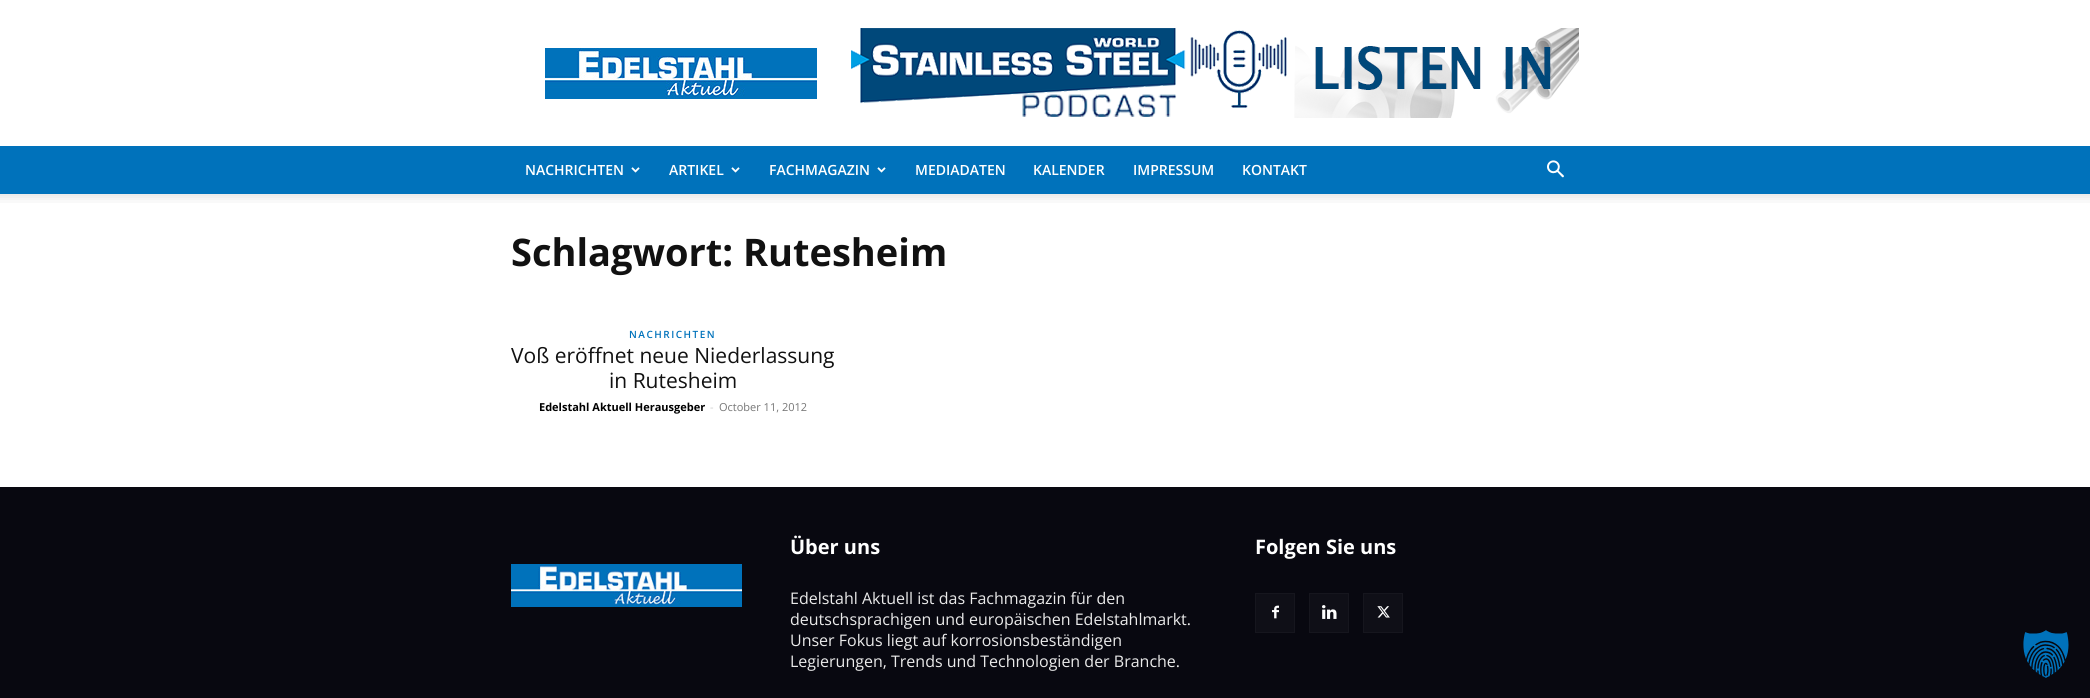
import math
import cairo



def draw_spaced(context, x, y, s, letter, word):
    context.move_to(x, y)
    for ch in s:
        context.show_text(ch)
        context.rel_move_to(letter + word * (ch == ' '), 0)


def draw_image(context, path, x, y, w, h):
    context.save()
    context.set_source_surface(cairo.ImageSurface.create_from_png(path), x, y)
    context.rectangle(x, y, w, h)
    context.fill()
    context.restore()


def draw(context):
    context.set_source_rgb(1, 1, 1)
    context.paint()
    draw_image(context, "images/1.png", 545, 48, 272, 51)
    draw_image(context, "images/2.png", 851, 28, 728, 90)
    context.set_source_rgb(0, 114 / 255, 187 / 255)
    context.rectangle(0, 146, 2090, 48)
    context.fill()
    draw_image(context, "images/3.png", 631, 167, 9, 6)
    draw_image(context, "images/3.png", 731, 167, 9, 6)
    draw_image(context, "images/3.png", 877, 167, 9, 6)
    draw_image(context, "images/4.png", 1547, 160, 17, 18)
    draw_image(context, "images/5.png", 0, 194, 2090, 9)
    context.set_source_rgb(8 / 255, 8 / 255, 16 / 255)
    context.rectangle(0, 487, 2090, 211)
    context.fill()
    context.set_source_rgb(15 / 255, 15 / 255, 23 / 255)
    context.rectangle(1256, 594, 38, 38)
    context.fill()
    draw_image(context, "images/6.png", 1272, 605, 7, 14)
    context.rectangle(1255.5, 593.5, 39, 39)
    context.set_source_rgb(22 / 255, 22 / 255, 30 / 255)
    context.set_line_width(1)
    context.stroke()
    context.set_source_rgb(15 / 255, 15 / 255, 23 / 255)
    context.rectangle(1310, 594, 38, 38)
    context.fill()
    draw_image(context, "images/7.png", 1322, 605, 15, 14)
    context.rectangle(1309.5, 593.5, 39, 39)
    context.set_source_rgb(22 / 255, 22 / 255, 30 / 255)
    context.stroke()
    context.set_source_rgb(15 / 255, 15 / 255, 23 / 255)
    context.rectangle(1364, 594, 38, 38)
    context.fill()
    draw_image(context, "images/8.png", 1377, 606, 13, 12)
    context.rectangle(1363.5, 593.5, 39, 39)
    context.set_source_rgb(22 / 255, 22 / 255, 30 / 255)
    context.stroke()
    draw_image(context, "images/9.png", 511, 564, 231, 43)
    draw_image(context, "images/10.png", 2023, 630, 46, 48)
    context.select_font_face("Open Sans SemiBold")
    context.set_font_size(14)
    context.set_source_rgb(1, 1, 1)
    context.move_to(525, 175)
    context.show_text("NACHRICHTEN")
    context.move_to(669, 175)
    context.show_text("ARTIKEL")
    context.move_to(769, 175)
    context.show_text("FACHMAGAZIN")
    context.move_to(915, 175)
    context.show_text("MEDIADATEN")
    context.move_to(1033, 175)
    context.show_text("KALENDER")
    context.move_to(1133, 175)
    context.show_text("IMPRESSUM")
    context.move_to(1242, 175)
    context.show_text("KONTAKT")
    context.select_font_face("Open Sans", cairo.FontSlant.NORMAL, cairo.FontWeight.BOLD)
    context.set_font_size(38)
    context.set_source_rgb(17 / 255, 17 / 255, 17 / 255)
    context.move_to(511, 266)
    context.show_text("Schlagwort: Rutesheim")
    context.select_font_face("Open Sans SemiBold")
    context.set_font_size(10)
    context.set_source_rgb(0, 114 / 255, 187 / 255)
    draw_spaced(context, 629, 338, "NACHRICHTEN", 1.5, 0)
    context.select_font_face("Open Sans")
    context.set_font_size(21)
    context.set_source_rgb(17 / 255, 17 / 255, 17 / 255)
    context.move_to(511, 363)
    context.show_text("Voß eröffnet neue Niederlassung")
    context.move_to(609, 388)
    context.show_text("in Rutesheim")
    context.select_font_face("Open Sans", cairo.FontSlant.NORMAL, cairo.FontWeight.BOLD)
    context.set_font_size(11)
    context.set_source_rgb(0, 0, 0)
    context.move_to(539, 411)
    context.show_text("Edelstahl Aktuell Herausgeber")
    context.select_font_face("Open Sans")
    context.set_source_rgb(204 / 255, 204 / 255, 204 / 255)
    context.move_to(710, 411)
    context.show_text("-")
    context.set_source_rgb(118 / 255, 118 / 255, 118 / 255)
    context.move_to(719, 411)
    context.show_text("October 11, 2012")
    context.select_font_face("Open Sans", cairo.FontSlant.NORMAL, cairo.FontWeight.BOLD)
    context.set_font_size(20)
    context.set_source_rgb(1, 1, 1)
    context.move_to(790, 554)
    context.show_text("Über uns")
    context.select_font_face("Open Sans")
    context.set_font_size(16)
    context.set_source_rgb(234 / 255, 234 / 255, 234 / 255)
    context.move_to(790, 604)
    context.show_text("Edelstahl Aktuell ist das Fachmagazin für den")
    context.move_to(790, 625)
    context.show_text("deutschsprachigen und europäischen Edelstahlmarkt.")
    context.move_to(790, 646)
    context.show_text("Unser Fokus liegt auf korrosionsbeständigen")
    context.move_to(790, 667)
    context.show_text("Legierungen, Trends und Technologien der Branche.")
    context.select_font_face("Open Sans", cairo.FontSlant.NORMAL, cairo.FontWeight.BOLD)
    context.set_font_size(20)
    context.set_source_rgb(1, 1, 1)
    context.move_to(1255, 554)
    context.show_text("Folgen Sie uns")


surface = cairo.ImageSurface(cairo.Format.RGB24, 2090, 698)
context = cairo.Context(surface)
options = cairo.FontOptions()
options.set_hint_metrics(cairo.HintMetrics.OFF)
options.set_hint_style(cairo.HintStyle.NONE)
context.set_font_options(options)
context.set_miter_limit(4)
draw(context)
surface.write_to_png("out.png")
